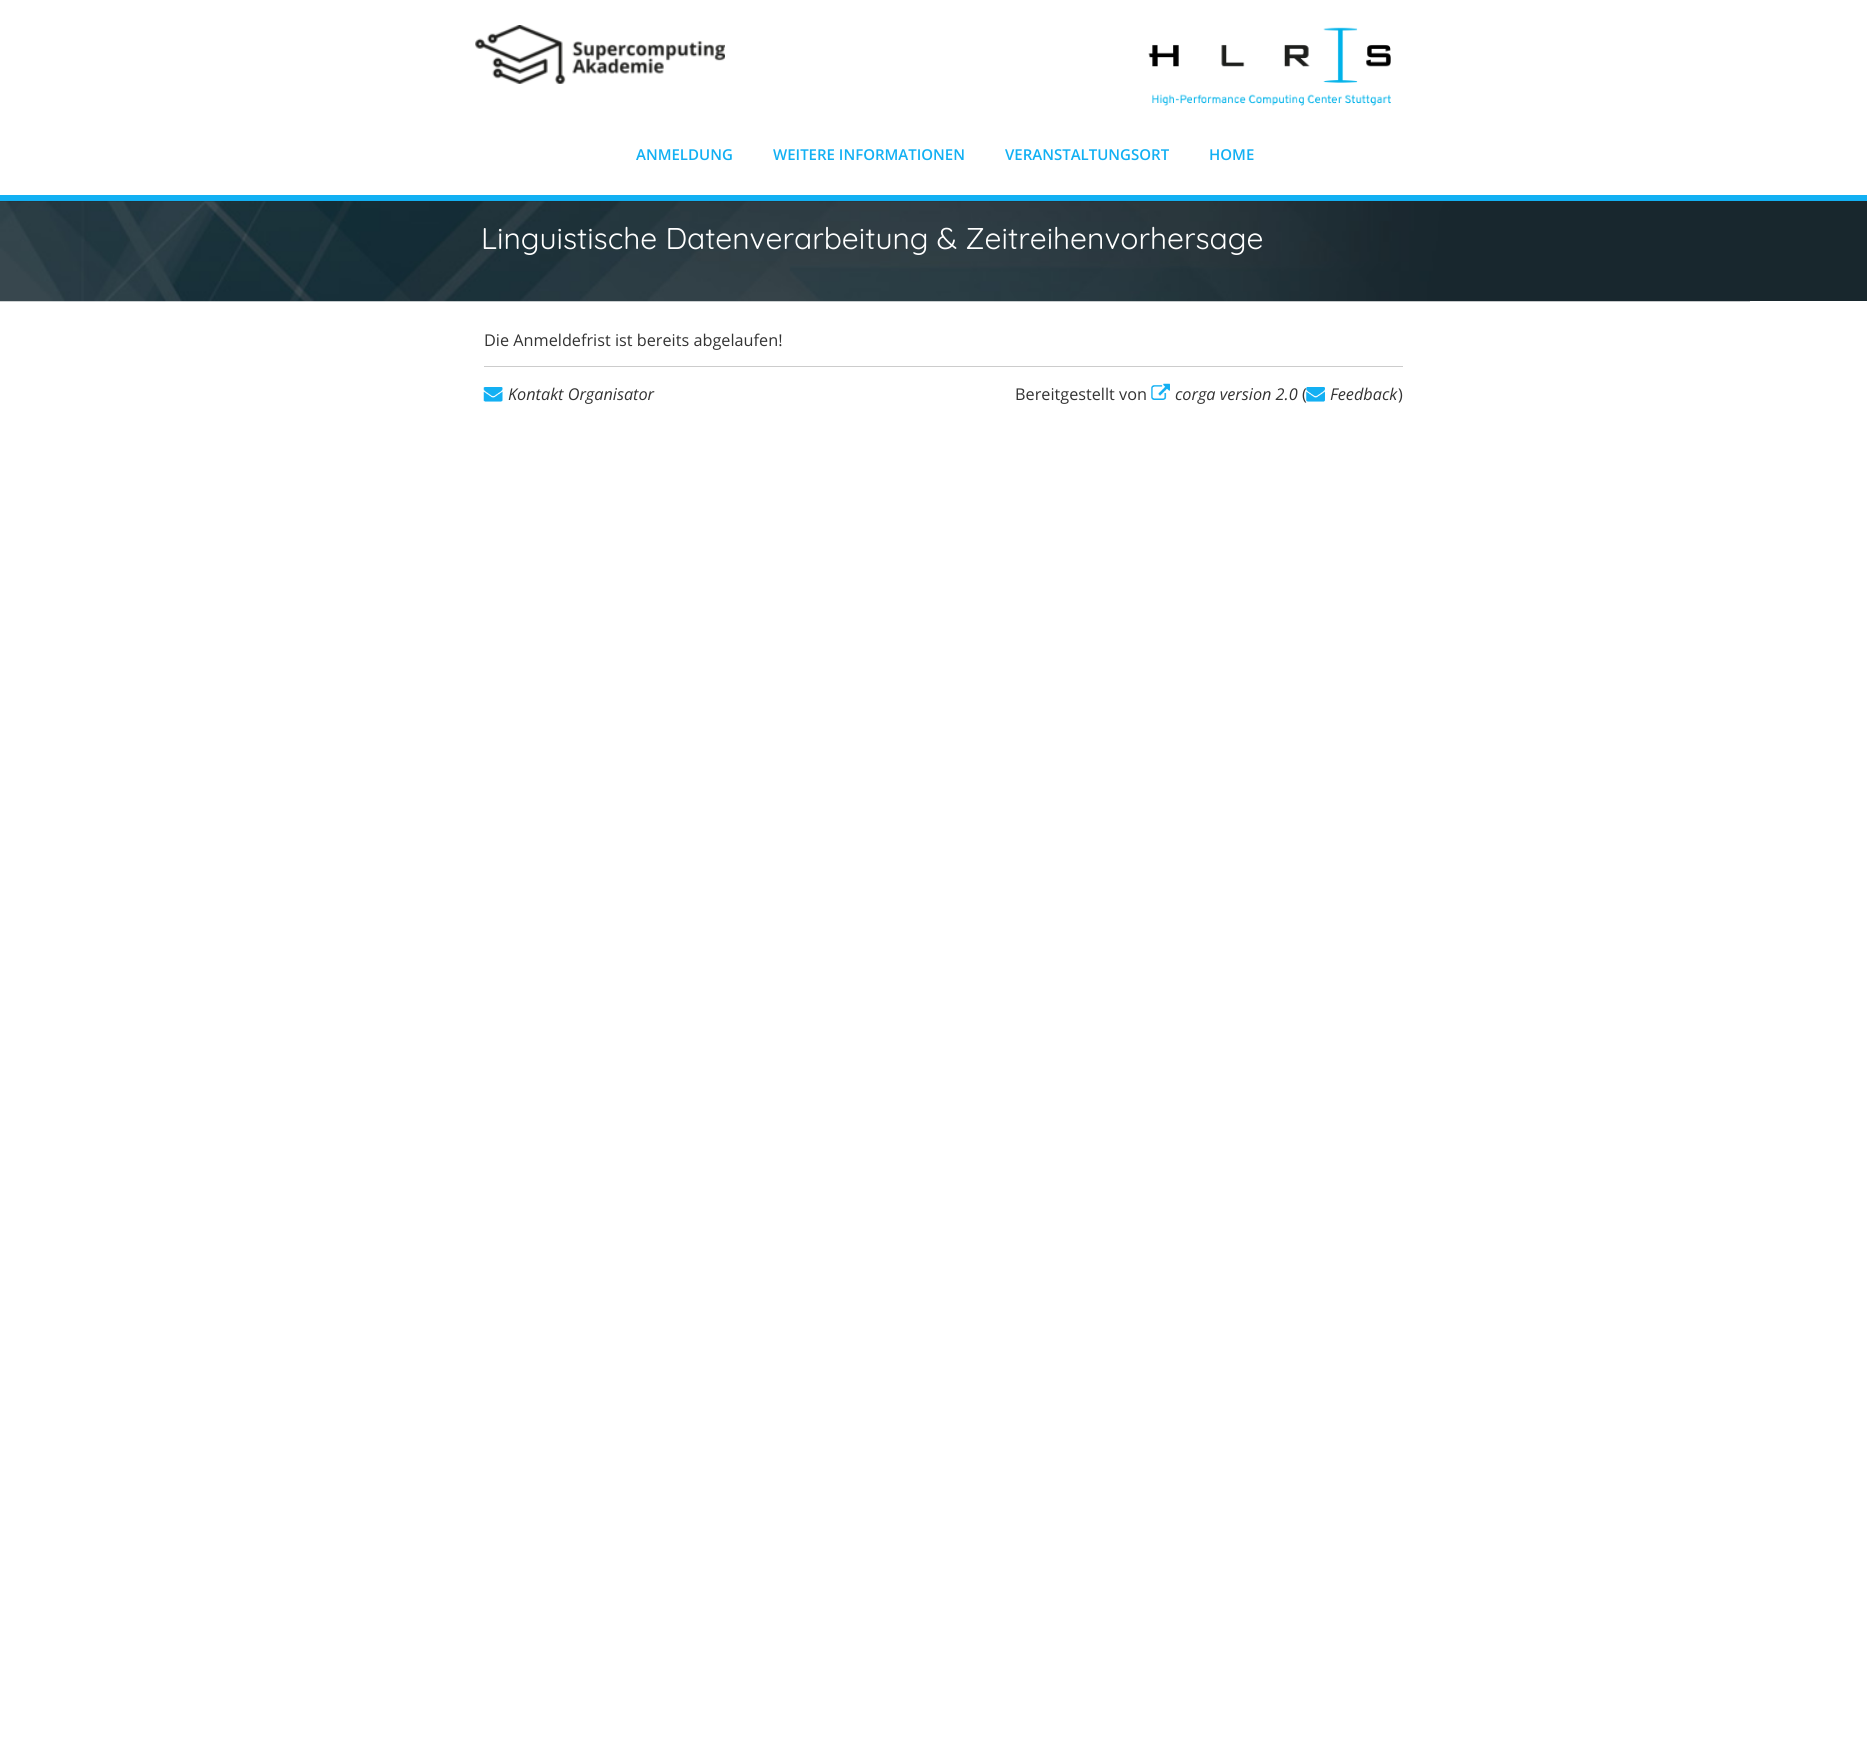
import math
import cairo



def draw_image(context, path, x, y, w, h):
    context.save()
    context.set_source_surface(cairo.ImageSurface.create_from_png(path), x, y)
    context.rectangle(x, y, w, h)
    context.fill()
    context.restore()


def draw(context):
    context.set_source_rgb(1, 1, 1)
    context.paint()
    draw_image(context, "images/1.png", 475, 25, 250, 59)
    draw_image(context, "images/2.png", 1148, 27, 243, 79)
    context.set_source_rgb(24 / 255, 39 / 255, 45 / 255)
    context.rectangle(0, 201, 1867, 100)
    context.fill()
    draw_image(context, "images/3.png", 0, 201, 1750, 101)
    context.set_source_rgb(18 / 255, 176 / 255, 243 / 255)
    context.rectangle(0, 195, 1867, 6)
    context.fill()
    context.set_source_rgb(204 / 255, 204 / 255, 204 / 255)
    context.rectangle(484, 366, 919, 1)
    context.fill()
    draw_image(context, "images/4.png", 483, 387, 20, 15)
    draw_image(context, "images/5.png", 1151, 383, 19, 17)
    context.select_font_face("Open Sans SemiBold")
    context.set_font_size(15)
    context.set_source_rgb(18 / 255, 176 / 255, 243 / 255)
    context.move_to(636, 160)
    context.show_text("ANMELDUNG")
    context.move_to(773, 160)
    context.show_text("WEITERE INFORMATIONEN")
    context.move_to(1005, 160)
    context.show_text("VERANSTALTUNGSORT")
    context.move_to(1209, 160)
    context.show_text("HOME")
    context.select_font_face("Quicksand")
    context.set_font_size(30)
    context.set_source_rgb(1, 1, 1)
    context.move_to(481, 249)
    context.show_text("Linguistische Datenverarbeitung & Zeitreihenvorhersage")
    context.select_font_face("Open Sans")
    context.set_font_size(16.25)
    context.set_source_rgb(51 / 255, 51 / 255, 51 / 255)
    context.move_to(484, 346)
    context.show_text("Die Anmeldefrist ist bereits abgelaufen!")
    context.select_font_face("Open Sans", cairo.FontSlant.ITALIC)
    context.move_to(508, 400)
    context.show_text("Kontakt Organisator")
    context.select_font_face("Open Sans")
    context.move_to(1015, 400)
    context.show_text("Bereitgestellt von")
    context.select_font_face("Open Sans", cairo.FontSlant.ITALIC)
    context.move_to(1175, 400)
    context.show_text("corga version 2.0")
    context.select_font_face("Open Sans")
    context.move_to(1302, 400)
    context.show_text("(")
    draw_image(context, "images/6.png", 1306, 387, 19, 15)
    context.select_font_face("Open Sans", cairo.FontSlant.ITALIC)
    context.move_to(1330, 400)
    context.show_text("Feedback")
    context.select_font_face("Open Sans")
    context.move_to(1398, 400)
    context.show_text(")")


surface = cairo.ImageSurface(cairo.Format.RGB24, 1867, 1753)
context = cairo.Context(surface)
options = cairo.FontOptions()
options.set_hint_metrics(cairo.HintMetrics.OFF)
options.set_hint_style(cairo.HintStyle.NONE)
context.set_font_options(options)
context.set_miter_limit(4)
draw(context)
surface.write_to_png("out.png")
